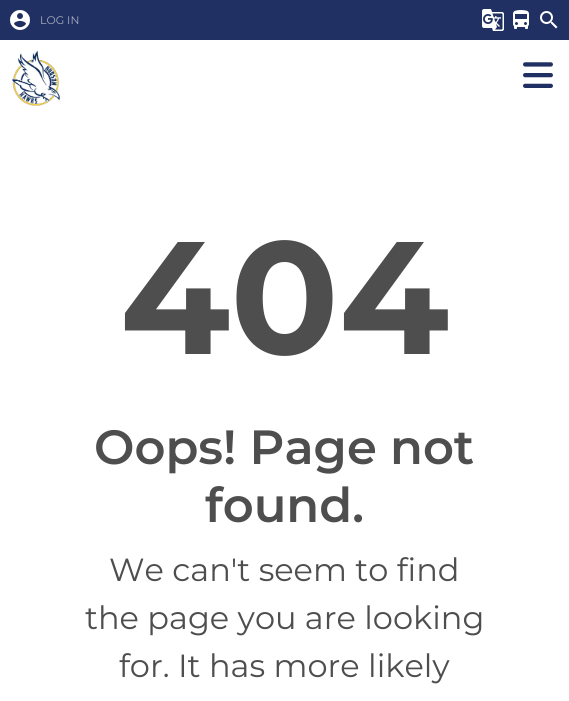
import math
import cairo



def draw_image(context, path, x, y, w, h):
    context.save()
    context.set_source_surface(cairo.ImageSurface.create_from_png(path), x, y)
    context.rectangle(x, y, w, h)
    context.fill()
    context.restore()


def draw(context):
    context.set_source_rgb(1, 1, 1)
    context.paint()
    context.set_source_rgb(33 / 255, 48 / 255, 98 / 255)
    context.rectangle(0, 0, 569, 40)
    context.fill()
    draw_image(context, "images/1.png", 10, 10, 20, 20)
    draw_image(context, "images/2.png", 482, 9, 22, 22)
    draw_image(context, "images/3.png", 513, 10, 16, 19)
    draw_image(context, "images/4.png", 540, 11, 18, 18)
    draw_image(context, "images/5.png", 11, 50, 49, 56)
    draw_image(context, "images/6.png", 523, 62, 30, 26)
    context.select_font_face("Montserrat")
    context.set_font_size(11)
    context.set_source_rgb(166 / 255, 172 / 255, 192 / 255)
    context.move_to(40, 24)
    context.show_text("LOG IN")
    context.select_font_face("Montserrat", cairo.FontSlant.NORMAL, cairo.FontWeight.BOLD)
    context.set_font_size(160)
    context.set_source_rgb(78 / 255, 78 / 255, 78 / 255)
    context.move_to(120, 354)
    context.show_text("404")
    context.select_font_face("Montserrat SemiBold")
    context.set_font_size(48)
    context.move_to(94, 464)
    context.show_text("Oops! Page not")
    context.move_to(205, 522)
    context.show_text("found.")
    context.select_font_face("Montserrat")
    context.set_font_size(32)
    context.move_to(109, 581)
    context.show_text("We can't seem to find")
    context.move_to(85, 629)
    context.show_text("the page you are looking")
    context.move_to(119, 677)
    context.show_text("for. It has more likely")


surface = cairo.ImageSurface(cairo.Format.RGB24, 569, 701)
context = cairo.Context(surface)
options = cairo.FontOptions()
options.set_hint_metrics(cairo.HintMetrics.OFF)
options.set_hint_style(cairo.HintStyle.NONE)
context.set_font_options(options)
context.set_miter_limit(4)
draw(context)
surface.write_to_png("out.png")
